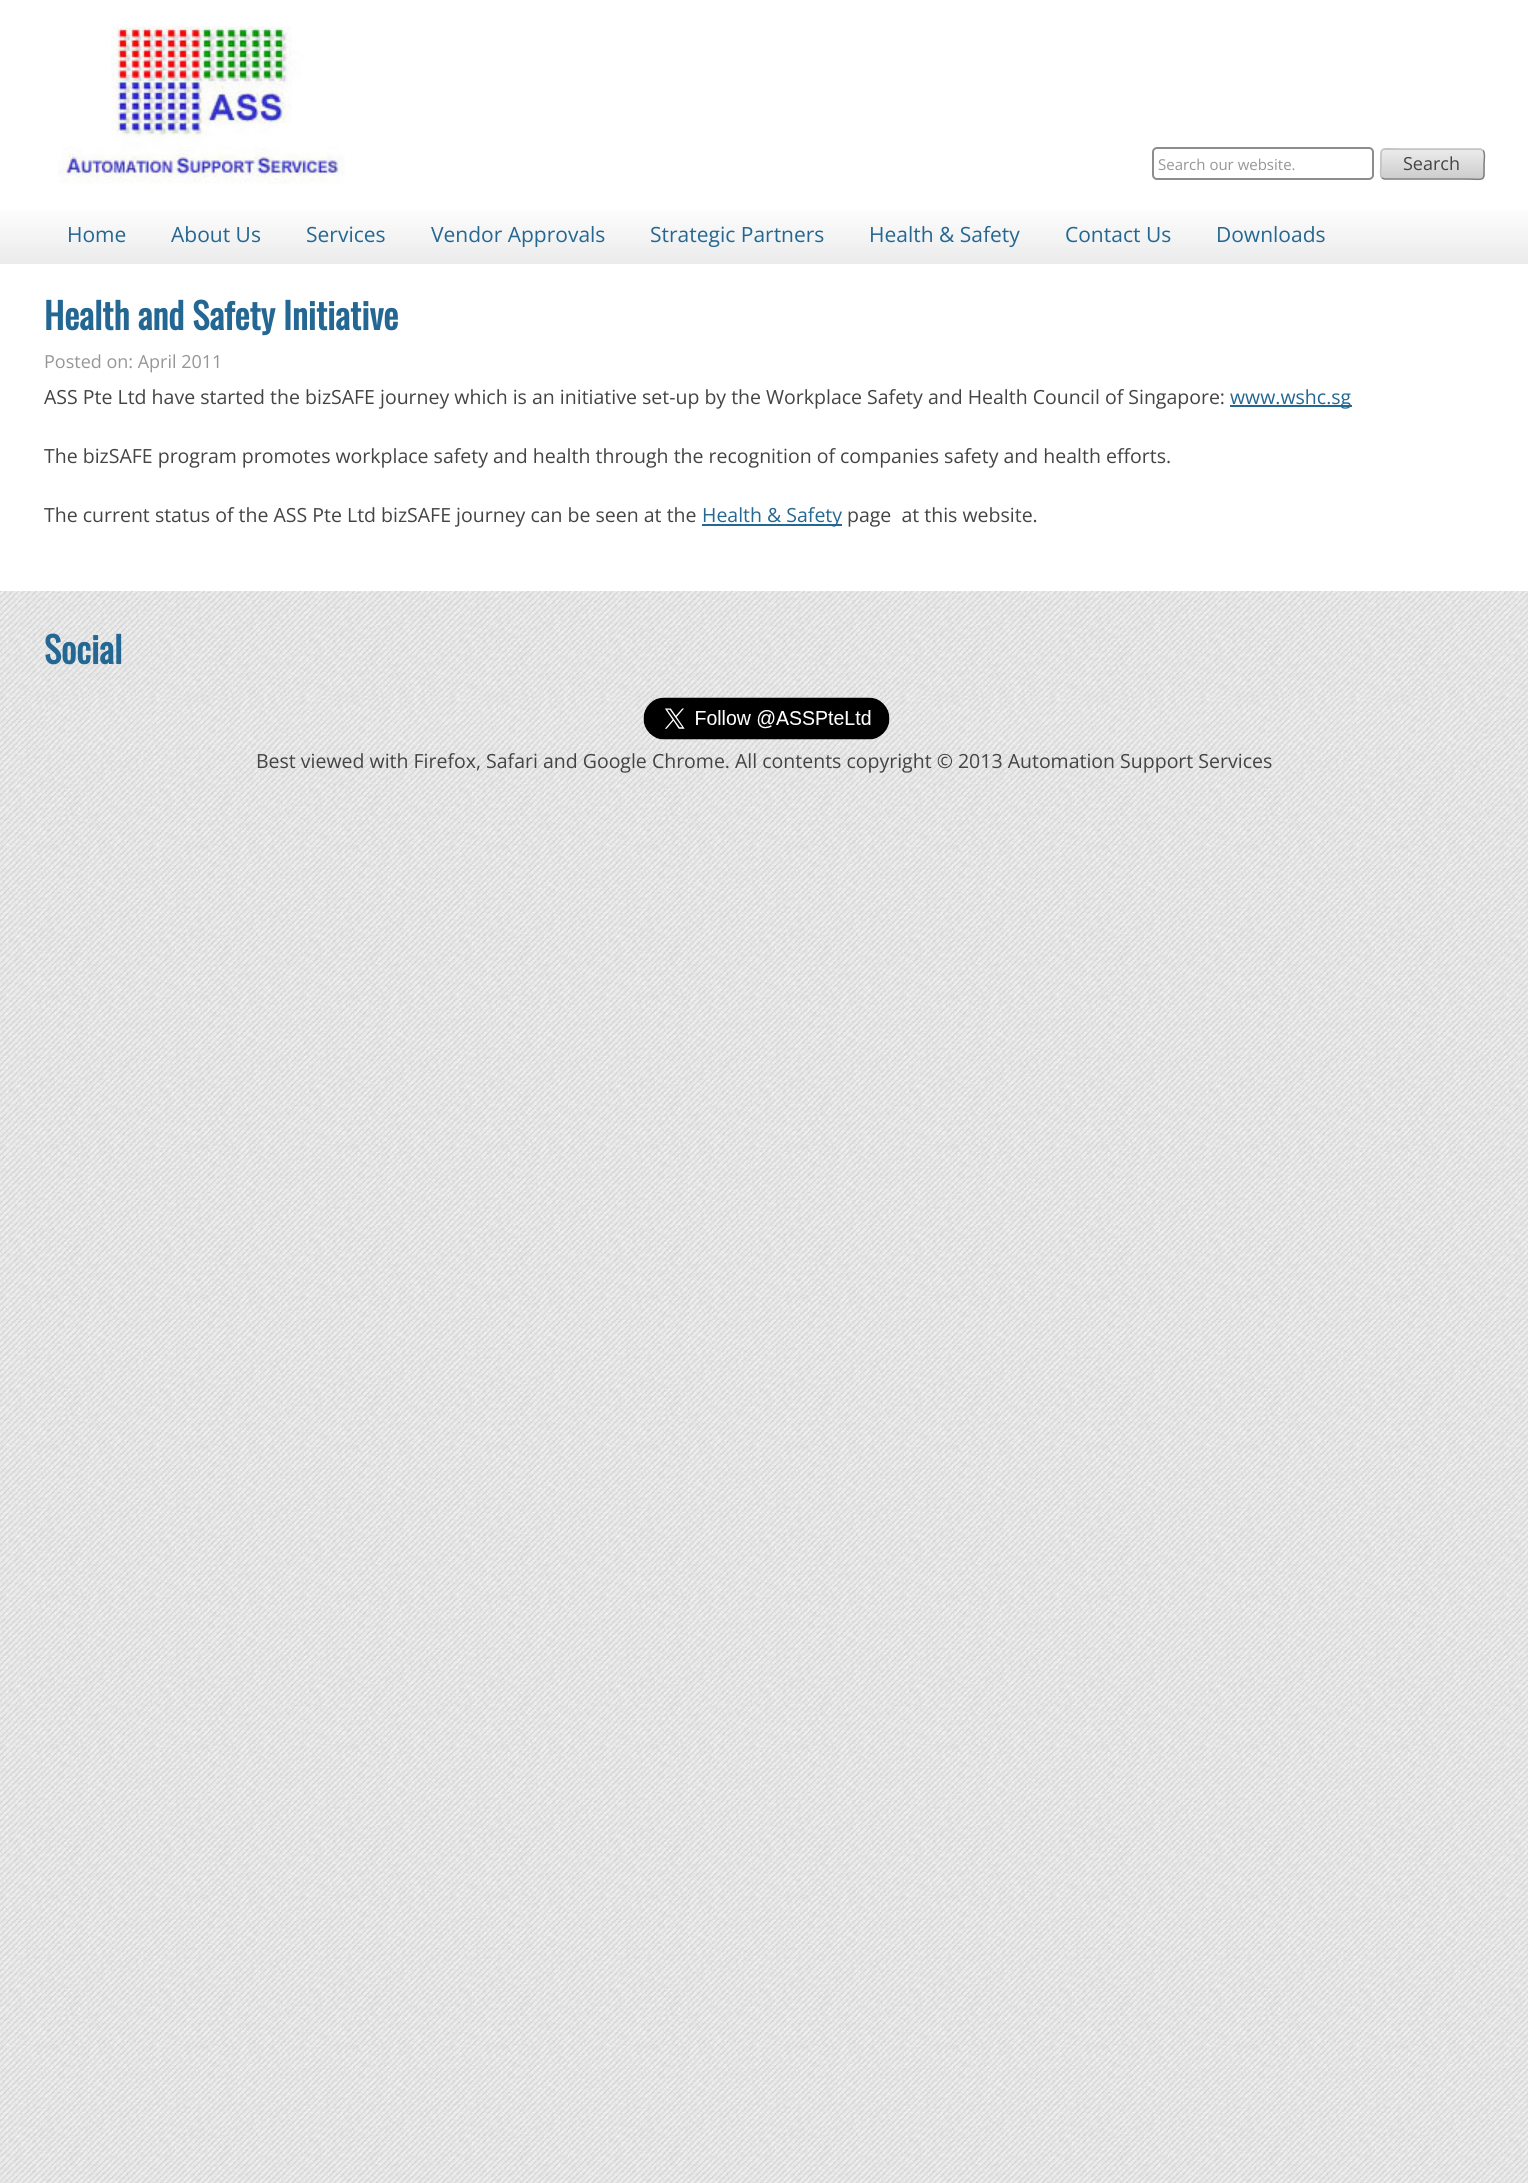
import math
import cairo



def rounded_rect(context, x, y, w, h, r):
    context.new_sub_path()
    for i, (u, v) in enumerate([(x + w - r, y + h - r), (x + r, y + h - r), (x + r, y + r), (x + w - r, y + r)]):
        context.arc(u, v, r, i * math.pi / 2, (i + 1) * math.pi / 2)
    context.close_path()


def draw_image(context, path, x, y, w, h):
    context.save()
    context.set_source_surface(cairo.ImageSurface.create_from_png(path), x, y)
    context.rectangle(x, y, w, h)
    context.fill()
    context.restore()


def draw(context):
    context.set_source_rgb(1, 1, 1)
    context.paint()
    draw_image(context, "images/1.png", 0, 591, 1528, 1592)
    draw_image(context, "images/2.png", 58, 26, 287, 158)
    rounded_rect(context, 1153, 148, 220, 31, 4)
    context.set_source_rgb(141 / 255, 141 / 255, 141 / 255)
    context.stroke()
    context.save()
    rounded_rect(context, 1380, 149, 105, 31, 5)
    context.clip()
    gradient = cairo.LinearGradient(1433, 122, 1433, 150)
    gradient.add_color_stop_rgba(0, 235 / 255, 235 / 255, 235 / 255, 1)
    gradient.add_color_stop_rgba(1, 204 / 255, 204 / 255, 204 / 255, 1)
    context.set_source(gradient)
    context.rectangle(1380, 149, 105, 1)
    context.fill()
    gradient = cairo.LinearGradient(1433, 150, 1433, 179)
    gradient.add_color_stop_rgba(0, 235 / 255, 235 / 255, 235 / 255, 1)
    gradient.add_color_stop_rgba(1, 204 / 255, 204 / 255, 204 / 255, 1)
    context.set_source(gradient)
    context.rectangle(1380, 150, 105, 29)
    context.fill()
    gradient = cairo.LinearGradient(1433, 179, 1433, 207)
    gradient.add_color_stop_rgba(0, 235 / 255, 235 / 255, 235 / 255, 1)
    gradient.add_color_stop_rgba(1, 204 / 255, 204 / 255, 204 / 255, 1)
    context.set_source(gradient)
    context.rectangle(1380, 179, 105, 1)
    context.fill()
    context.restore()
    context.new_path()
    context.move_to(1483, 150.5)
    context.curve_to(1485.5, 152.5, 1484, 161.5, 1484, 164)
    context.curve_to(1484, 183, 1486, 179, 1464.5, 179)
    context.line_to(1384.5, 179)
    context.line_to(1382, 178)
    context.set_source_rgb(128 / 255, 128 / 255, 128 / 255)
    context.set_line_width(1.5)
    context.stroke()
    context.new_path()
    context.move_to(1382, 178)
    context.curve_to(1379.5, 176, 1381, 167, 1381, 164)
    context.curve_to(1381, 145.5, 1379, 149, 1400.5, 149)
    context.line_to(1480.5, 149)
    context.line_to(1483, 150.5)
    context.set_source_rgb(192 / 255, 192 / 255, 192 / 255)
    context.stroke()
    gradient = cairo.LinearGradient(764, 202, 764, 264)
    gradient.add_color_stop_rgba(0, 1, 1, 1, 1)
    gradient.add_color_stop_rgba(1, 235 / 255, 235 / 255, 235 / 255, 1)
    context.set_source(gradient)
    context.rectangle(0, 210, 1528, 54)
    context.fill()
    context.set_source_rgb(36 / 255, 103 / 255, 146 / 255)
    context.rectangle(1230, 405, 122, 2)
    context.fill()
    context.rectangle(702, 524, 140, 2)
    context.fill()
    draw_image(context, "images/3.png", 45, 697, 1440, 50)
    draw_image(context, "images/4.png", 643, 697, 247, 43)
    context.select_font_face("Open Sans")
    context.set_font_size(15)
    context.set_source_rgb(150 / 255, 150 / 255, 150 / 255)
    context.move_to(1158, 170)
    context.show_text("Search our website.")
    context.set_font_size(18)
    context.set_source_rgb(68 / 255, 68 / 255, 68 / 255)
    context.move_to(1403, 170)
    context.show_text("Search")
    context.set_font_size(21)
    context.set_source_rgb(36 / 255, 103 / 255, 146 / 255)
    context.move_to(67, 242)
    context.show_text("Home")
    context.move_to(171, 242)
    context.show_text("About Us")
    context.move_to(306, 242)
    context.show_text("Services")
    context.move_to(431, 242)
    context.show_text("Vendor Approvals")
    context.move_to(650, 242)
    context.show_text("Strategic Partners")
    context.move_to(869, 242)
    context.show_text("Health & Safety")
    context.move_to(1065, 242)
    context.show_text("Contact Us")
    context.move_to(1216, 242)
    context.show_text("Downloads")
    context.select_font_face("Oswald", cairo.FontSlant.NORMAL, cairo.FontWeight.BOLD)
    context.set_font_size(36)
    context.move_to(44, 330)
    context.show_text("Health and Safety Initiative")
    context.select_font_face("Open Sans")
    context.set_font_size(18)
    context.set_source_rgb(150 / 255, 150 / 255, 150 / 255)
    context.move_to(44, 368)
    context.show_text("Posted on: April 2011")
    context.set_font_size(19.5)
    context.set_source_rgb(68 / 255, 68 / 255, 68 / 255)
    context.move_to(44, 404)
    context.show_text("ASS Pte Ltd have started the bizSAFE journey which is an initiative set-up by the Workplace Safety and Health Council of Singapore:")
    context.set_source_rgb(36 / 255, 103 / 255, 146 / 255)
    context.move_to(1230, 404)
    context.show_text("www.wshc.sg")
    context.set_source_rgb(68 / 255, 68 / 255, 68 / 255)
    context.move_to(44, 463)
    context.show_text("The bizSAFE program promotes workplace safety and health through the recognition of companies safety and health efforts.")
    context.move_to(44, 522)
    context.show_text("The current status of the ASS Pte Ltd bizSAFE journey can be seen at the")
    context.set_source_rgb(36 / 255, 103 / 255, 146 / 255)
    context.move_to(702, 522)
    context.show_text("Health & Safety")
    context.set_source_rgb(68 / 255, 68 / 255, 68 / 255)
    context.move_to(847, 522)
    context.show_text("page  at this website.")
    context.select_font_face("Oswald", cairo.FontSlant.NORMAL, cairo.FontWeight.BOLD)
    context.set_font_size(36)
    context.set_source_rgb(36 / 255, 103 / 255, 146 / 255)
    context.move_to(44, 664)
    context.show_text("Social")
    context.select_font_face("Open Sans")
    context.set_font_size(19.5)
    context.set_source_rgb(68 / 255, 68 / 255, 68 / 255)
    context.move_to(256, 768)
    context.show_text("Best viewed with Firefox, Safari and Google Chrome. All contents copyright © 2013 Automation Support Services")


surface = cairo.ImageSurface(cairo.Format.RGB24, 1528, 2183)
context = cairo.Context(surface)
options = cairo.FontOptions()
options.set_hint_metrics(cairo.HintMetrics.OFF)
options.set_hint_style(cairo.HintStyle.NONE)
context.set_font_options(options)
context.set_miter_limit(4)
draw(context)
surface.write_to_png("out.png")
